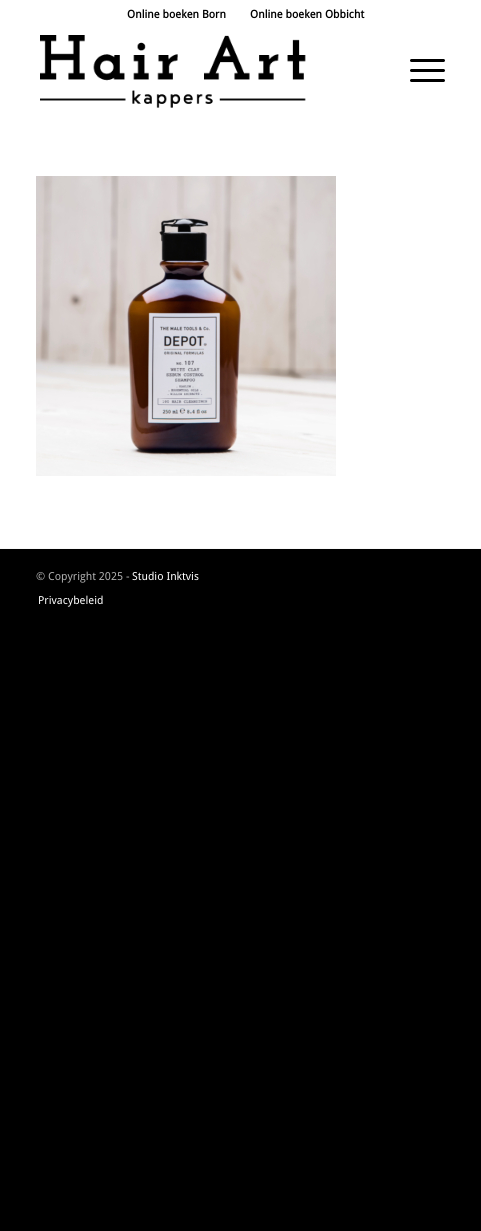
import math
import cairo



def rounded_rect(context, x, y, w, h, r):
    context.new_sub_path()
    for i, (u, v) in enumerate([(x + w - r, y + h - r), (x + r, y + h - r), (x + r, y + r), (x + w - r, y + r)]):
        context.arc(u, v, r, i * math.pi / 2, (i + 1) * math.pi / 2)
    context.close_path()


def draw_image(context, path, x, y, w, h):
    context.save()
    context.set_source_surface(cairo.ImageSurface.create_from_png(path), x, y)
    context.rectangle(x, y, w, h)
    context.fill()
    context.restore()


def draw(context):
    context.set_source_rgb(0, 0, 0)
    context.paint()
    context.set_source_rgb(1, 1, 1)
    context.rectangle(0, 0, 481, 548)
    context.fill()
    draw_image(context, "images/1.png", 40, 35, 266, 73)
    context.set_source_rgb(0, 0, 0)
    rounded_rect(context, 410, 69, 35, 3, 1.5)
    context.fill()
    rounded_rect(context, 410, 59, 35, 3, 1.5)
    context.fill()
    rounded_rect(context, 410, 79, 35, 3, 1.5)
    context.fill()
    draw_image(context, "images/2.png", 36, 176, 300, 300)
    context.set_source_rgb(248 / 255, 248 / 255, 248 / 255)
    context.rectangle(0, 548, 481, 1)
    context.fill()
    context.select_font_face("Droid Sans", cairo.FontSlant.NORMAL, cairo.FontWeight.BOLD)
    context.set_font_size(11)
    context.set_source_rgb(0, 0, 0)
    context.move_to(127, 18)
    context.show_text("Online boeken Born")
    context.move_to(250, 18)
    context.show_text("Online boeken Obbicht")
    context.select_font_face("Droid Sans")
    context.set_source_rgb(176 / 255, 176 / 255, 176 / 255)
    context.move_to(36, 580)
    context.show_text("© Copyright 2025 -")
    context.set_source_rgb(1, 1, 1)
    context.move_to(132, 580)
    context.show_text("Studio Inktvis")
    context.move_to(38, 604)
    context.show_text("Privacybeleid")


surface = cairo.ImageSurface(cairo.Format.RGB24, 481, 1231)
context = cairo.Context(surface)
options = cairo.FontOptions()
options.set_hint_metrics(cairo.HintMetrics.OFF)
options.set_hint_style(cairo.HintStyle.NONE)
context.set_font_options(options)
context.set_miter_limit(4)
draw(context)
surface.write_to_png("out.png")
